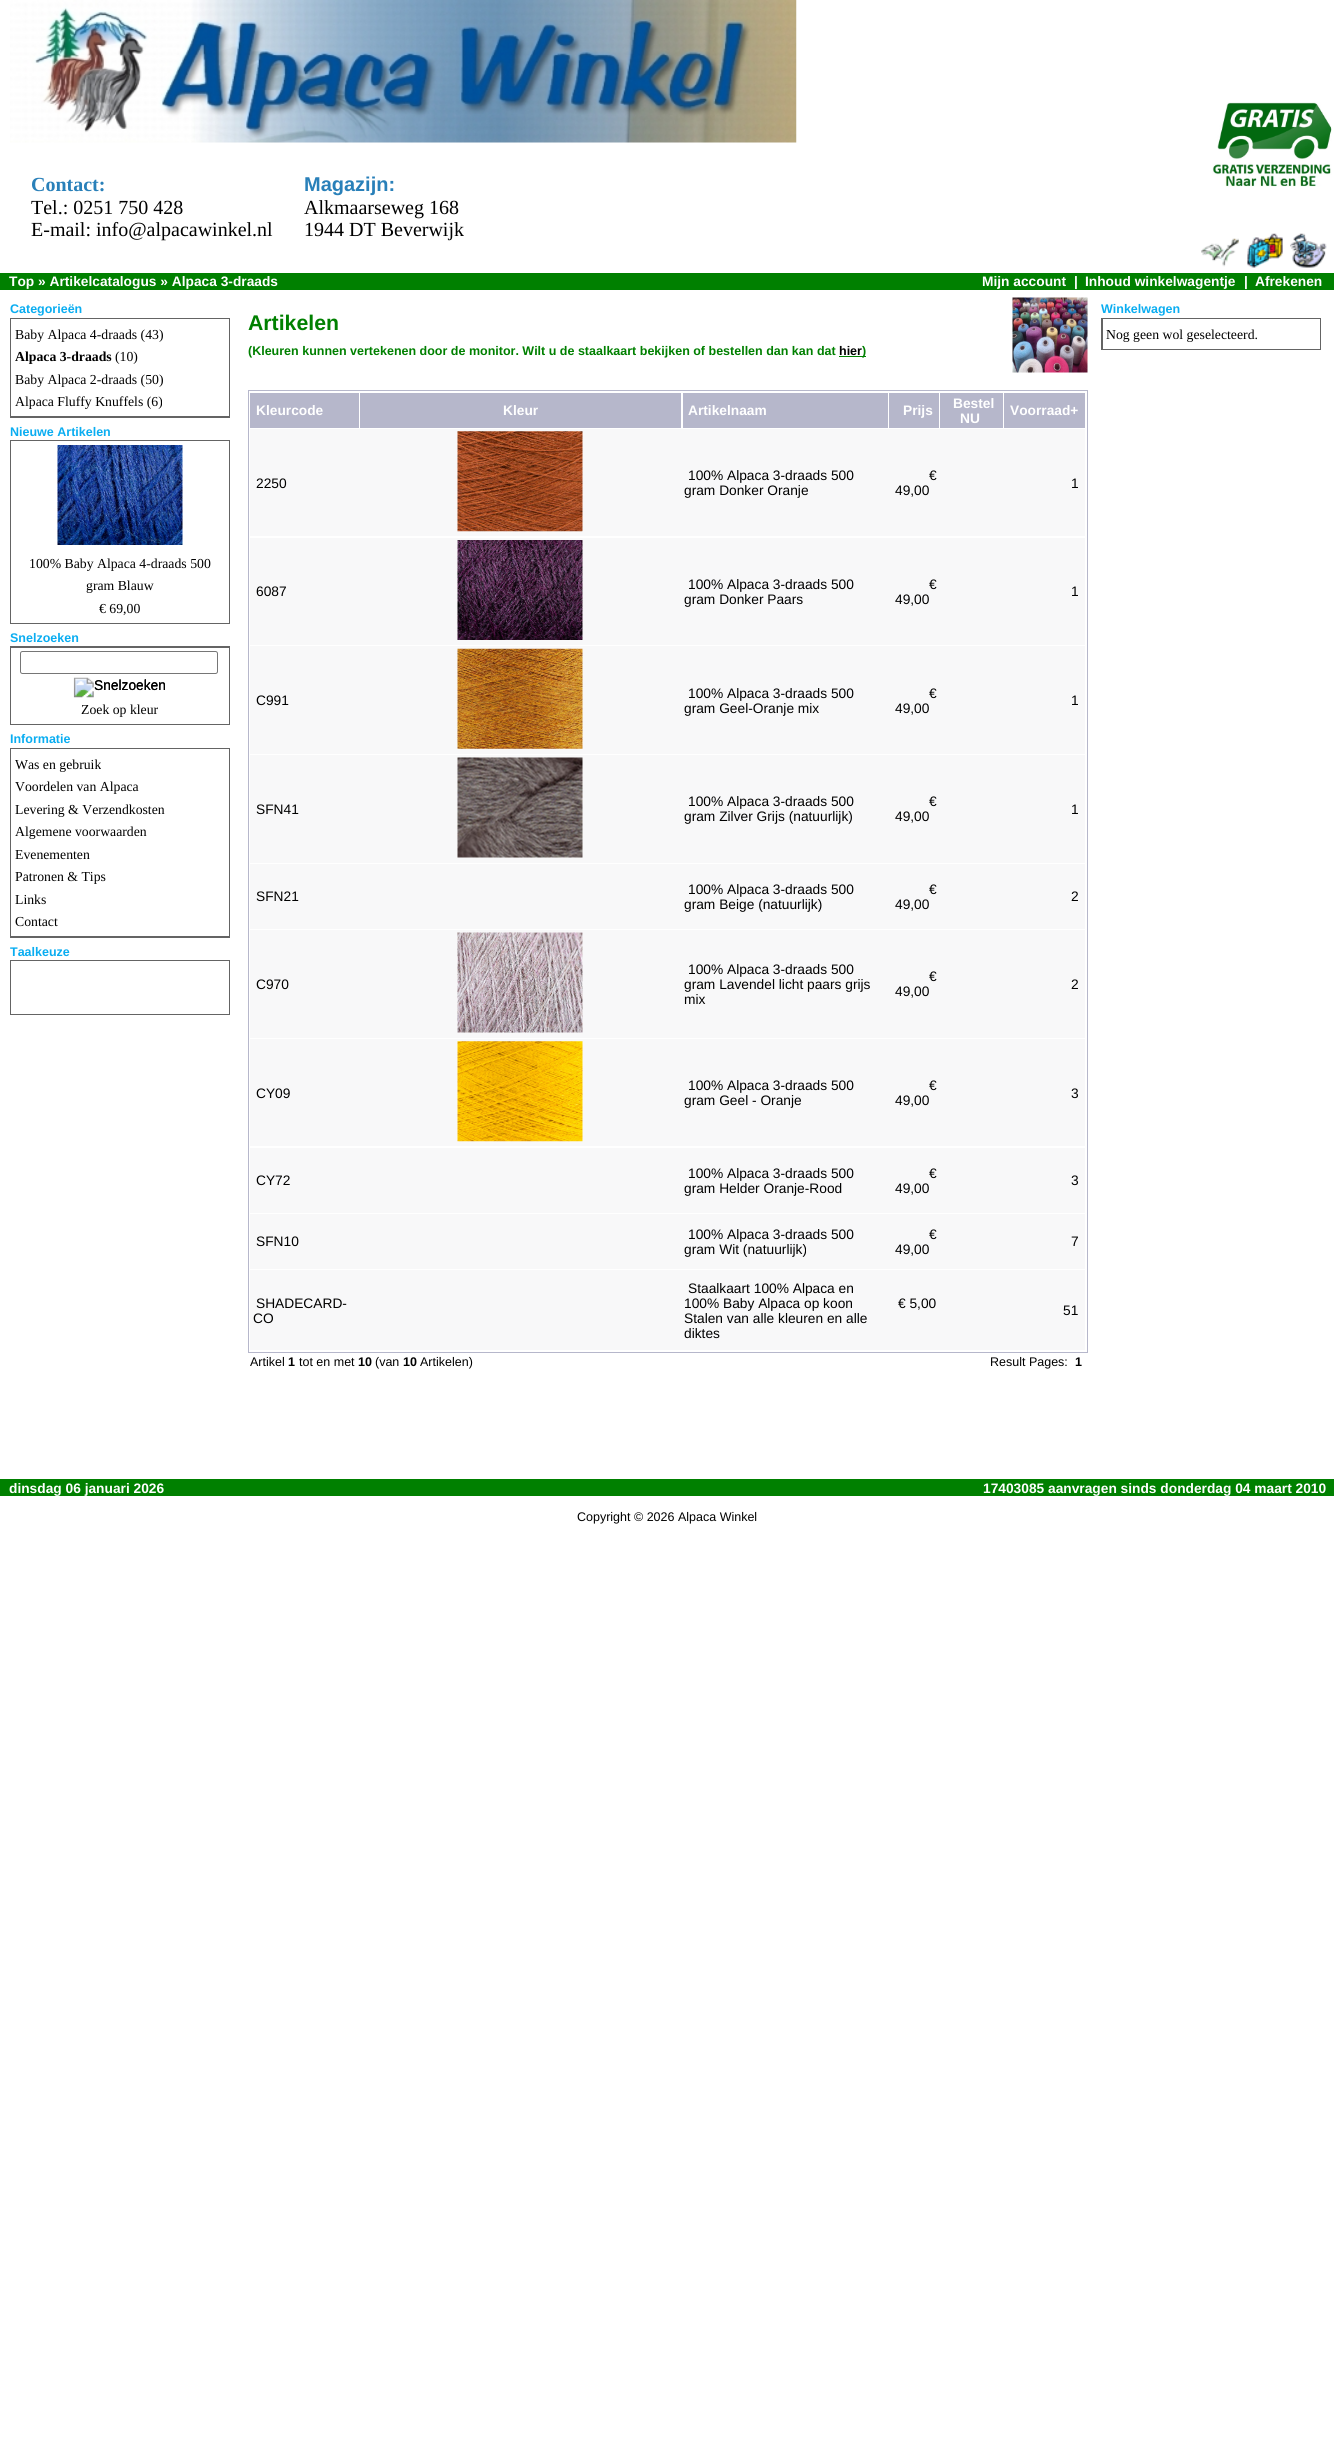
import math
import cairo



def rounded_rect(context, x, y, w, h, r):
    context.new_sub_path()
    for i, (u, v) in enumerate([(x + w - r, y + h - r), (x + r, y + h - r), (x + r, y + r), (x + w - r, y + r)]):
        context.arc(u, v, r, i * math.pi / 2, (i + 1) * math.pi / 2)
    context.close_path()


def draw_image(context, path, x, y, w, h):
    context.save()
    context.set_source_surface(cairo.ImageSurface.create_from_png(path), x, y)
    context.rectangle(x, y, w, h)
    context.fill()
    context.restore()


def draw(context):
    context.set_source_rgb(1, 1, 1)
    context.paint()
    draw_image(context, "images/1.png", 1212, 102, 120, 85)
    draw_image(context, "images/2.png", 10, 0, 787, 143)
    draw_image(context, "images/3.png", 1201, 238, 38, 29)
    draw_image(context, "images/4.png", 1247, 233, 36, 35)
    draw_image(context, "images/5.png", 1290, 233, 37, 35)
    context.set_source_rgb(0, 128 / 255, 0)
    context.rectangle(0, 273, 1334, 17)
    context.fill()
    context.set_source_rgb(100 / 255, 100 / 255, 100 / 255)
    context.rectangle(10, 318, 220, 100)
    context.fill()
    context.set_source_rgb(1, 1, 1)
    context.rectangle(11, 319, 218, 97)
    context.fill()
    context.set_source_rgb(100 / 255, 100 / 255, 100 / 255)
    context.rectangle(10, 440, 220, 184)
    context.fill()
    context.set_source_rgb(1, 1, 1)
    context.rectangle(11, 441, 218, 182)
    context.fill()
    draw_image(context, "images/6.png", 57, 445, 126, 100)
    context.set_source_rgb(100 / 255, 100 / 255, 100 / 255)
    context.rectangle(10, 646, 220, 79)
    context.fill()
    context.set_source_rgb(1, 1, 1)
    context.rectangle(11, 648, 218, 76)
    context.fill()
    rounded_rect(context, 20.5, 651.5, 197, 22, 2)
    context.set_source_rgb(118 / 255, 118 / 255, 118 / 255)
    context.set_line_width(1)
    context.stroke()
    draw_image(context, "images/7.png", 73, 677, 92, 21)
    context.set_source_rgb(100 / 255, 100 / 255, 100 / 255)
    context.rectangle(10, 748, 220, 190)
    context.fill()
    context.set_source_rgb(1, 1, 1)
    context.rectangle(11, 749, 218, 187)
    context.fill()
    context.set_source_rgb(100 / 255, 100 / 255, 100 / 255)
    context.rectangle(10, 960, 220, 55)
    context.fill()
    context.set_source_rgb(1, 1, 1)
    context.rectangle(11, 961, 218, 53)
    context.fill()
    context.set_source_rgb(0, 128 / 255, 0)
    context.rectangle(839, 356, 27, 1)
    context.fill()
    draw_image(context, "images/8.png", 1012, 297, 76, 76)
    context.rectangle(248.5, 390.5, 839, 962)
    context.set_source_rgb(182 / 255, 183 / 255, 203 / 255)
    context.stroke()
    context.rectangle(250, 393, 109, 35)
    context.fill()
    context.rectangle(360, 393, 321, 35)
    context.fill()
    context.rectangle(683, 393, 205, 35)
    context.fill()
    context.rectangle(889, 393, 50, 35)
    context.fill()
    context.rectangle(940, 393, 63, 35)
    context.fill()
    context.rectangle(1004, 393, 81, 35)
    context.fill()
    context.set_source_rgb(248 / 255, 248 / 255, 249 / 255)
    context.rectangle(250, 429, 835, 107)
    context.fill()
    draw_image(context, "images/9.png", 457, 431, 126, 101)
    context.rectangle(250, 538, 835, 107)
    context.fill()
    draw_image(context, "images/10.png", 457, 540, 126, 100)
    context.rectangle(250, 646, 835, 108)
    context.fill()
    draw_image(context, "images/11.png", 457, 648, 126, 101)
    context.rectangle(250, 755, 835, 108)
    context.fill()
    draw_image(context, "images/12.png", 457, 757, 126, 101)
    context.rectangle(250, 864, 835, 65)
    context.fill()
    context.rectangle(250, 930, 835, 108)
    context.fill()
    draw_image(context, "images/13.png", 457, 932, 126, 101)
    context.rectangle(250, 1039, 835, 107)
    context.fill()
    draw_image(context, "images/14.png", 457, 1041, 126, 101)
    context.rectangle(250, 1148, 835, 65)
    context.fill()
    context.rectangle(250, 1214, 835, 55)
    context.fill()
    context.rectangle(250, 1270, 835, 80)
    context.fill()
    context.set_source_rgb(100 / 255, 100 / 255, 100 / 255)
    context.rectangle(1101, 318, 220, 32)
    context.fill()
    context.set_source_rgb(1, 1, 1)
    context.rectangle(1103, 319, 217, 30)
    context.fill()
    context.set_source_rgb(0, 128 / 255, 0)
    context.rectangle(0, 1479, 1334, 17)
    context.fill()
    context.select_font_face("Liberation Serif", cairo.FontSlant.NORMAL, cairo.FontWeight.BOLD)
    context.set_font_size(20)
    context.set_source_rgb(41 / 255, 128 / 255, 185 / 255)
    context.move_to(31, 191)
    context.show_text("Contact:")
    context.select_font_face("Liberation Serif")
    context.set_source_rgb(0, 0, 0)
    context.move_to(31, 214)
    context.show_text("Tel.: 0251 750 428")
    context.move_to(31, 236)
    context.show_text("E-mail: info@alpacawinkel.nl")
    context.select_font_face("Liberation Sans", cairo.FontSlant.NORMAL, cairo.FontWeight.BOLD)
    context.set_source_rgb(41 / 255, 128 / 255, 185 / 255)
    context.move_to(304, 191)
    context.show_text("Magazijn:")
    context.select_font_face("Liberation Serif")
    context.set_source_rgb(0, 0, 0)
    context.move_to(304, 214)
    context.show_text("Alkmaarseweg 168")
    context.move_to(304, 236)
    context.show_text("1944 DT Beverwijk")
    context.select_font_face("Liberation Sans", cairo.FontSlant.NORMAL, cairo.FontWeight.BOLD)
    context.set_font_size(13.75)
    context.set_source_rgb(1, 1, 1)
    context.move_to(9, 286)
    context.show_text("Top » Artikelcatalogus » Alpaca 3-draads")
    context.move_to(982, 286)
    context.show_text("Mijn account")
    context.move_to(1074, 286)
    context.show_text("|")
    context.move_to(1085, 286)
    context.show_text("Inhoud winkelwagentje")
    context.move_to(1244, 286)
    context.show_text("|")
    context.move_to(1255, 286)
    context.show_text("Afrekenen")
    context.set_font_size(12.5)
    context.set_source_rgb(10 / 255, 173 / 255, 241 / 255)
    context.move_to(10, 313)
    context.show_text("Categorieën")
    context.select_font_face("Liberation Serif")
    context.set_font_size(13.75)
    context.set_source_rgb(0, 0, 0)
    context.move_to(15, 339)
    context.show_text("Baby Alpaca 4-draads (43)")
    context.select_font_face("Liberation Serif", cairo.FontSlant.NORMAL, cairo.FontWeight.BOLD)
    context.move_to(15, 361)
    context.show_text("Alpaca 3-draads")
    context.select_font_face("Liberation Serif")
    context.move_to(115, 361)
    context.show_text("(10)")
    context.move_to(15, 384)
    context.show_text("Baby Alpaca 2-draads (50)")
    context.move_to(15, 406)
    context.show_text("Alpaca Fluffy Knuffels (6)")
    context.select_font_face("Liberation Sans", cairo.FontSlant.NORMAL, cairo.FontWeight.BOLD)
    context.set_font_size(12.5)
    context.set_source_rgb(10 / 255, 173 / 255, 241 / 255)
    context.move_to(10, 436)
    context.show_text("Nieuwe Artikelen")
    context.select_font_face("Liberation Serif")
    context.set_font_size(13.75)
    context.set_source_rgb(0, 0, 0)
    context.move_to(29, 568)
    context.show_text("100% Baby Alpaca 4-draads 500")
    context.move_to(86, 590)
    context.show_text("gram Blauw")
    context.move_to(99, 613)
    context.show_text("€ 69,00")
    context.select_font_face("Liberation Sans", cairo.FontSlant.NORMAL, cairo.FontWeight.BOLD)
    context.set_font_size(12.5)
    context.set_source_rgb(10 / 255, 173 / 255, 241 / 255)
    context.move_to(10, 642)
    context.show_text("Snelzoeken")
    context.select_font_face("Liberation Sans")
    context.set_font_size(13.75)
    context.set_source_rgb(0, 0, 0)
    context.move_to(94, 690)
    context.show_text("Snelzoeken")
    context.select_font_face("Liberation Serif")
    context.move_to(81, 714)
    context.show_text("Zoek op kleur")
    context.select_font_face("Liberation Sans", cairo.FontSlant.NORMAL, cairo.FontWeight.BOLD)
    context.set_font_size(12.5)
    context.set_source_rgb(10 / 255, 173 / 255, 241 / 255)
    context.move_to(10, 743)
    context.show_text("Informatie")
    context.select_font_face("Liberation Serif")
    context.set_font_size(13.75)
    context.set_source_rgb(0, 0, 0)
    context.move_to(15, 769)
    context.show_text("Was en gebruik")
    context.move_to(15, 791)
    context.show_text("Voordelen van Alpaca")
    context.move_to(15, 814)
    context.show_text("Levering & Verzendkosten")
    context.move_to(15, 836)
    context.show_text("Algemene voorwaarden")
    context.move_to(15, 859)
    context.show_text("Evenementen")
    context.move_to(15, 881)
    context.show_text("Patronen & Tips")
    context.move_to(15, 904)
    context.show_text("Links")
    context.move_to(15, 926)
    context.show_text("Contact")
    context.select_font_face("Liberation Sans", cairo.FontSlant.NORMAL, cairo.FontWeight.BOLD)
    context.set_font_size(12.5)
    context.set_source_rgb(10 / 255, 173 / 255, 241 / 255)
    context.move_to(10, 956)
    context.show_text("Taalkeuze")
    context.set_font_size(21.25)
    context.set_source_rgb(0, 128 / 255, 0)
    context.move_to(248, 330)
    context.show_text("Artikelen")
    context.set_font_size(12.5)
    context.move_to(248, 355)
    context.show_text("(Kleuren kunnen vertekenen door de monitor. Wilt u de staalkaart bekijken of bestellen dan kan dat")
    context.set_source_rgb(0, 0, 0)
    context.move_to(839, 355)
    context.show_text("hier")
    context.set_source_rgb(0, 128 / 255, 0)
    context.move_to(862, 355)
    context.show_text(")")
    context.set_font_size(13.75)
    context.set_source_rgb(1, 1, 1)
    context.move_to(256, 415)
    context.show_text("Kleurcode")
    context.move_to(503, 415)
    context.show_text("Kleur")
    context.move_to(688, 415)
    context.show_text("Artikelnaam")
    context.move_to(903, 415)
    context.show_text("Prijs")
    context.move_to(953, 408)
    context.show_text("Bestel")
    context.move_to(960, 423)
    context.show_text("NU")
    context.move_to(1010, 415)
    context.show_text("Voorraad+")
    context.select_font_face("Liberation Sans")
    context.set_source_rgb(0, 0, 0)
    context.move_to(256, 488)
    context.show_text("2250")
    context.move_to(688, 480)
    context.show_text("100% Alpaca 3-draads 500")
    context.move_to(684, 495)
    context.show_text("gram Donker Oranje")
    context.move_to(929, 480)
    context.show_text("€")
    context.move_to(895, 495)
    context.show_text("49,00")
    context.move_to(1071, 488)
    context.show_text("1")
    context.move_to(256, 596)
    context.show_text("6087")
    context.move_to(688, 589)
    context.show_text("100% Alpaca 3-draads 500")
    context.move_to(684, 604)
    context.show_text("gram Donker Paars")
    context.move_to(929, 589)
    context.show_text("€")
    context.move_to(895, 604)
    context.show_text("49,00")
    context.move_to(1071, 596)
    context.show_text("1")
    context.move_to(256, 705)
    context.show_text("C991")
    context.move_to(688, 698)
    context.show_text("100% Alpaca 3-draads 500")
    context.move_to(684, 713)
    context.show_text("gram Geel-Oranje mix")
    context.move_to(929, 698)
    context.show_text("€")
    context.move_to(895, 713)
    context.show_text("49,00")
    context.move_to(1071, 705)
    context.show_text("1")
    context.move_to(256, 814)
    context.show_text("SFN41")
    context.move_to(688, 806)
    context.show_text("100% Alpaca 3-draads 500")
    context.move_to(684, 821)
    context.show_text("gram Zilver Grijs (natuurlijk)")
    context.move_to(929, 806)
    context.show_text("€")
    context.move_to(895, 821)
    context.show_text("49,00")
    context.move_to(1071, 814)
    context.show_text("1")
    context.move_to(256, 901)
    context.show_text("SFN21")
    context.move_to(688, 894)
    context.show_text("100% Alpaca 3-draads 500")
    context.move_to(684, 909)
    context.show_text("gram Beige (natuurlijk)")
    context.move_to(929, 894)
    context.show_text("€")
    context.move_to(895, 909)
    context.show_text("49,00")
    context.move_to(1071, 901)
    context.show_text("2")
    context.move_to(256, 989)
    context.show_text("C970")
    context.move_to(688, 974)
    context.show_text("100% Alpaca 3-draads 500")
    context.move_to(684, 989)
    context.show_text("gram Lavendel licht paars grijs")
    context.move_to(684, 1004)
    context.show_text("mix")
    context.move_to(929, 981)
    context.show_text("€")
    context.move_to(895, 996)
    context.show_text("49,00")
    context.move_to(1071, 989)
    context.show_text("2")
    context.move_to(256, 1098)
    context.show_text("CY09")
    context.move_to(688, 1090)
    context.show_text("100% Alpaca 3-draads 500")
    context.move_to(684, 1105)
    context.show_text("gram Geel - Oranje")
    context.move_to(929, 1090)
    context.show_text("€")
    context.move_to(895, 1105)
    context.show_text("49,00")
    context.move_to(1071, 1098)
    context.show_text("3")
    context.move_to(256, 1185)
    context.show_text("CY72")
    context.move_to(688, 1178)
    context.show_text("100% Alpaca 3-draads 500")
    context.move_to(684, 1193)
    context.show_text("gram Helder Oranje-Rood")
    context.move_to(929, 1178)
    context.show_text("€")
    context.move_to(895, 1193)
    context.show_text("49,00")
    context.move_to(1071, 1185)
    context.show_text("3")
    context.move_to(256, 1246)
    context.show_text("SFN10")
    context.move_to(688, 1239)
    context.show_text("100% Alpaca 3-draads 500")
    context.move_to(684, 1254)
    context.show_text("gram Wit (natuurlijk)")
    context.move_to(929, 1239)
    context.show_text("€")
    context.move_to(895, 1254)
    context.show_text("49,00")
    context.move_to(1071, 1246)
    context.show_text("7")
    context.move_to(256, 1308)
    context.show_text("SHADECARD-")
    context.move_to(253, 1323)
    context.show_text("CO")
    context.move_to(688, 1293)
    context.show_text("Staalkaart 100% Alpaca en")
    context.move_to(684, 1308)
    context.show_text("100% Baby Alpaca op koon")
    context.move_to(684, 1323)
    context.show_text("Stalen van alle kleuren en alle")
    context.move_to(684, 1338)
    context.show_text("diktes")
    context.move_to(898, 1308)
    context.show_text("€ 5,00")
    context.move_to(1063, 1315)
    context.show_text("51")
    context.set_font_size(12.5)
    context.move_to(250, 1366)
    context.show_text("Artikel")
    context.select_font_face("Liberation Sans", cairo.FontSlant.NORMAL, cairo.FontWeight.BOLD)
    context.move_to(288, 1366)
    context.show_text("1")
    context.select_font_face("Liberation Sans")
    context.move_to(299, 1366)
    context.show_text("tot en met")
    context.select_font_face("Liberation Sans", cairo.FontSlant.NORMAL, cairo.FontWeight.BOLD)
    context.move_to(358, 1366)
    context.show_text("10")
    context.select_font_face("Liberation Sans")
    context.move_to(375, 1366)
    context.show_text("(van")
    context.select_font_face("Liberation Sans", cairo.FontSlant.NORMAL, cairo.FontWeight.BOLD)
    context.move_to(403, 1366)
    context.show_text("10")
    context.select_font_face("Liberation Sans")
    context.move_to(420, 1366)
    context.show_text("Artikelen)")
    context.move_to(990, 1366)
    context.show_text("Result Pages:")
    context.select_font_face("Liberation Sans", cairo.FontSlant.NORMAL, cairo.FontWeight.BOLD)
    context.move_to(1075, 1366)
    context.show_text("1")
    context.set_source_rgb(10 / 255, 173 / 255, 241 / 255)
    context.move_to(1101, 313)
    context.show_text("Winkelwagen")
    context.select_font_face("Liberation Serif")
    context.set_font_size(13.75)
    context.set_source_rgb(0, 0, 0)
    context.move_to(1106, 339)
    context.show_text("Nog geen wol geselecteerd.")
    context.select_font_face("Liberation Sans", cairo.FontSlant.NORMAL, cairo.FontWeight.BOLD)
    context.set_source_rgb(1, 1, 1)
    context.move_to(9, 1493)
    context.show_text("dinsdag 06 januari 2026")
    context.move_to(983, 1493)
    context.show_text("17403085 aanvragen sinds donderdag 04 maart 2010")
    context.select_font_face("Liberation Sans")
    context.set_font_size(12.5)
    context.set_source_rgb(0, 0, 0)
    context.move_to(577, 1521)
    context.show_text("Copyright © 2026 Alpaca Winkel")


surface = cairo.ImageSurface(cairo.Format.RGB24, 1334, 2444)
context = cairo.Context(surface)
options = cairo.FontOptions()
options.set_hint_metrics(cairo.HintMetrics.OFF)
options.set_hint_style(cairo.HintStyle.NONE)
context.set_font_options(options)
context.set_miter_limit(4)
draw(context)
surface.write_to_png("out.png")
